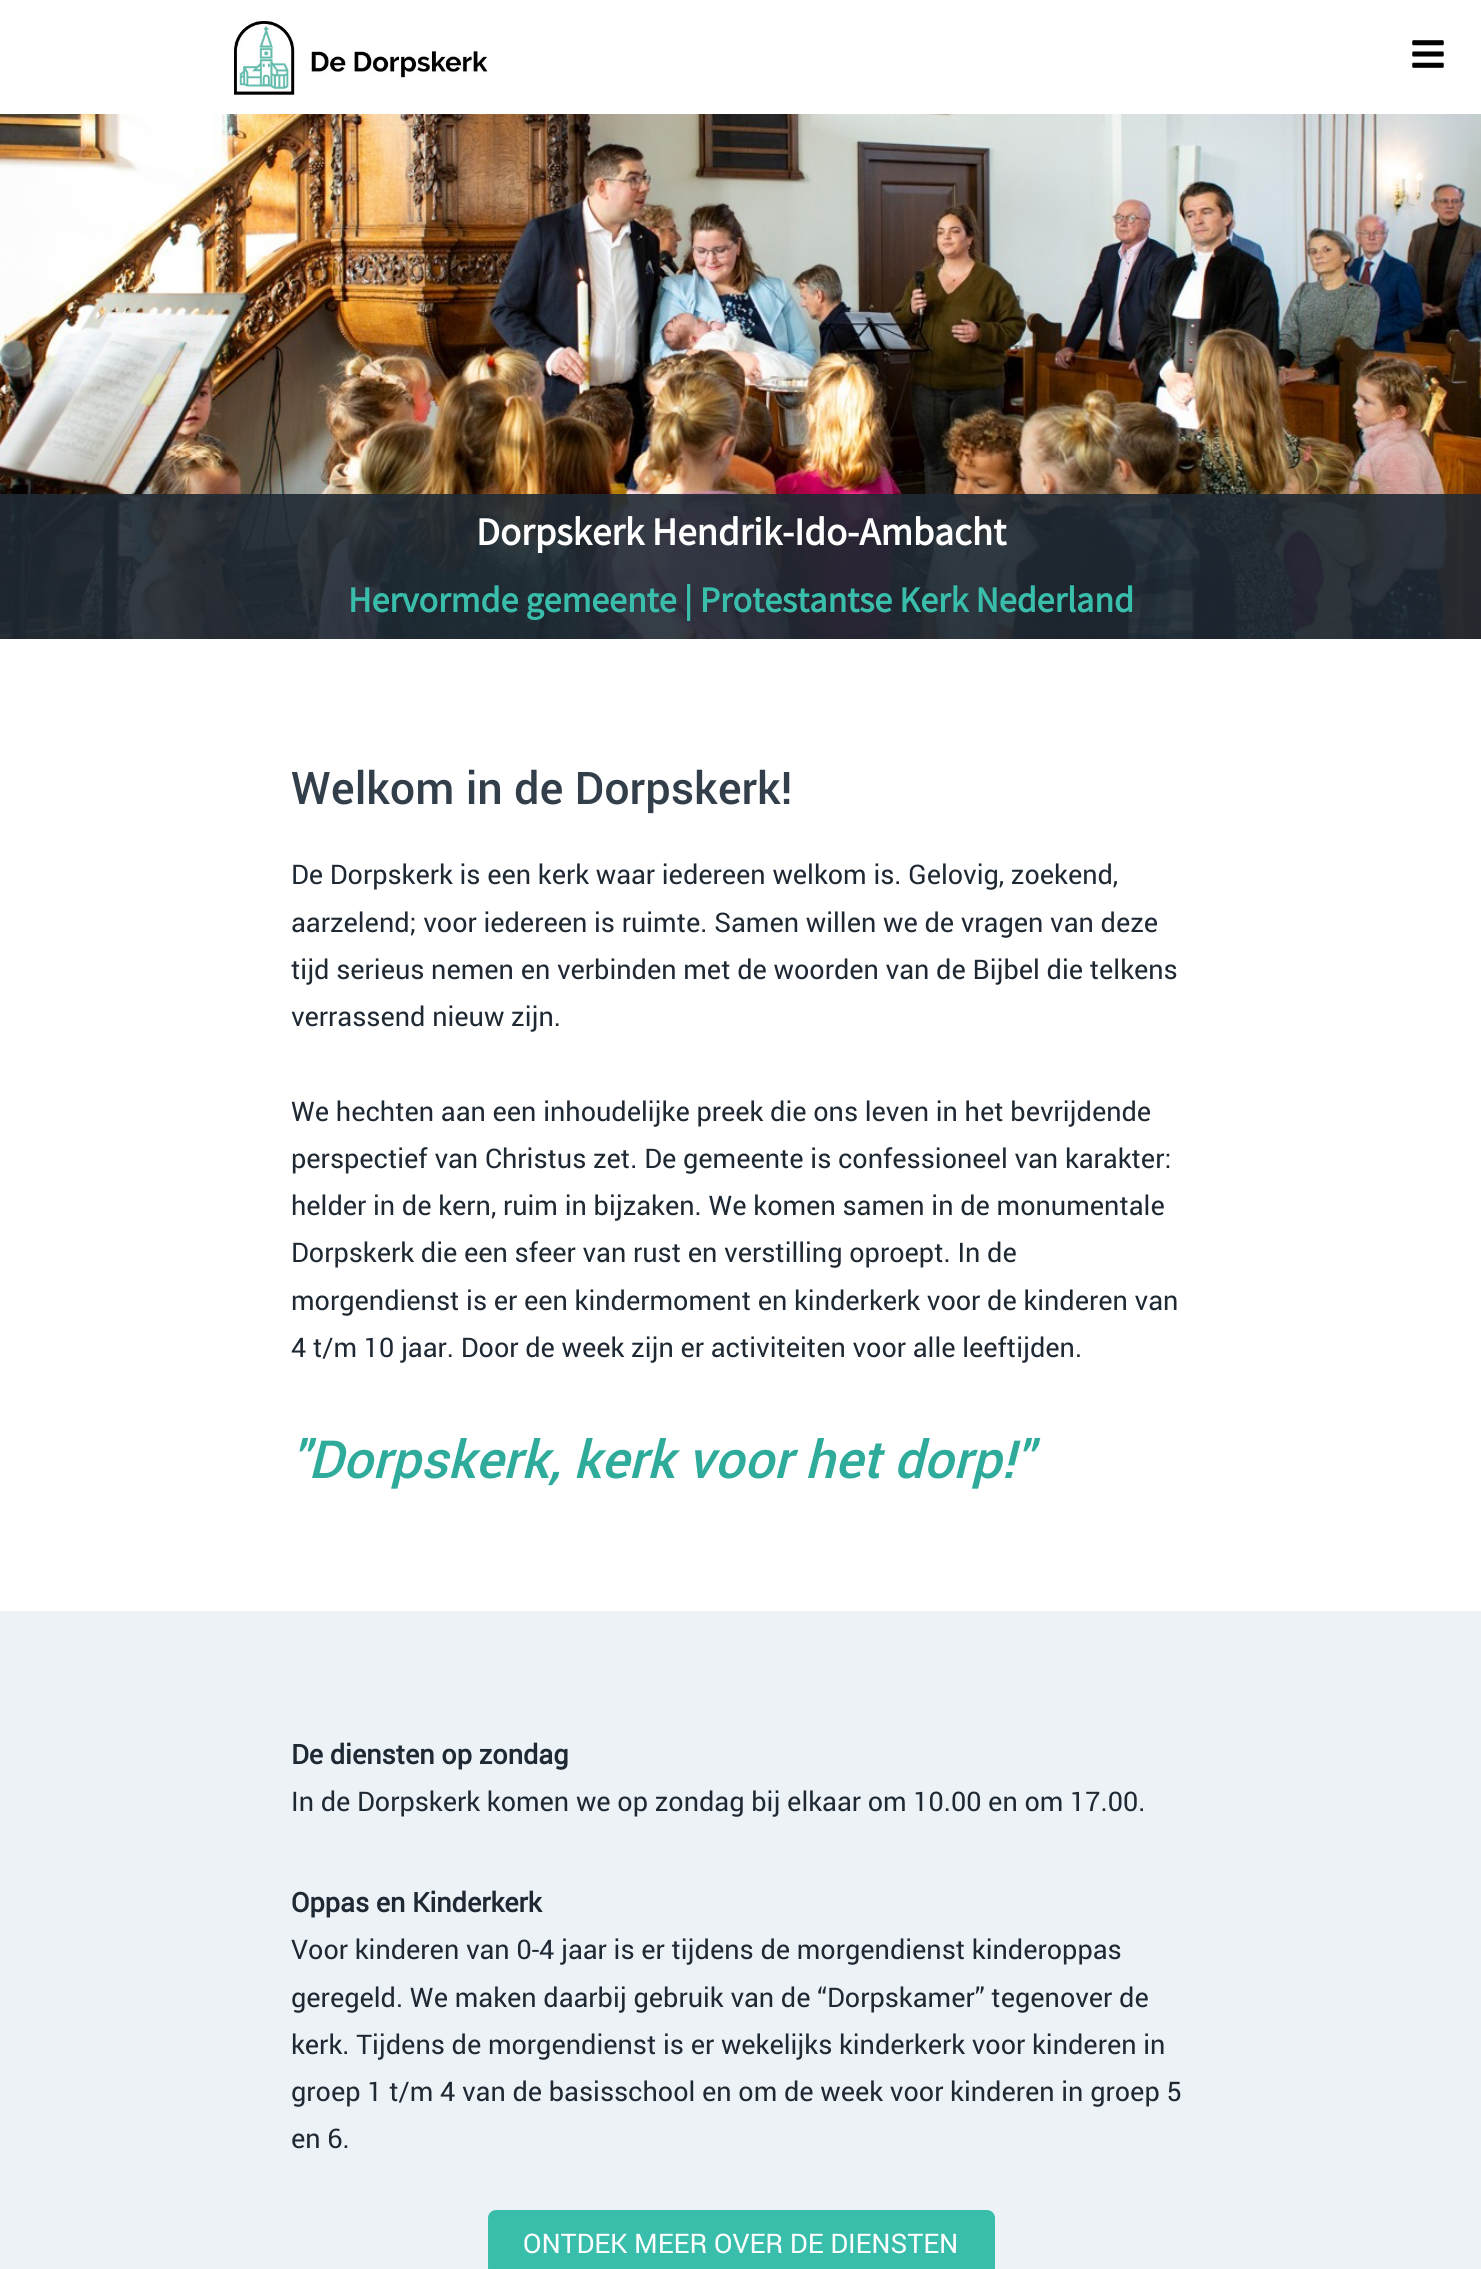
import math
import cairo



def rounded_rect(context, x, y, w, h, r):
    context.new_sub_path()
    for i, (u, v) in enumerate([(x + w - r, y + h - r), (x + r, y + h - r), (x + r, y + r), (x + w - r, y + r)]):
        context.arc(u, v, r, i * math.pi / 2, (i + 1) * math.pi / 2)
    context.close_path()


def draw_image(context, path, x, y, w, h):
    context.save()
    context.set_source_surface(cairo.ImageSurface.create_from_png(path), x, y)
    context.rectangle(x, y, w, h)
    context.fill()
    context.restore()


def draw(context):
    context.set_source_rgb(1, 1, 1)
    context.paint()
    draw_image(context, "images/1.png", 234, 19, 257, 79)
    draw_image(context, "images/2.png", 1412, 40, 32, 28)
    draw_image(context, "images/3.png", 0, 114, 1481, 525)
    context.set_source_rgba(31 / 255, 41 / 255, 51 / 255, 0.9)
    context.rectangle(0, 494, 1481, 145)
    context.fill()
    context.set_source_rgb(237 / 255, 242 / 255, 247 / 255)
    context.rectangle(0, 1611, 1481, 658)
    context.fill()
    context.set_source_rgb(58 / 255, 190 / 255, 172 / 255)
    rounded_rect(context, 488, 2210, 507, 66, 8)
    context.fill()
    context.select_font_face("Source Sans Pro", cairo.FontSlant.NORMAL, cairo.FontWeight.BOLD)
    context.set_font_size(39)
    context.set_source_rgb(1, 1, 1)
    context.move_to(476, 545)
    context.show_text("Dorpskerk Hendrik-Ido-Ambacht")
    context.set_font_size(36)
    context.set_source_rgb(58 / 255, 190 / 255, 172 / 255)
    context.move_to(348, 612)
    context.show_text("Hervormde gemeente | Protestantse Kerk Nederland")
    context.select_font_face("Roboto Medium")
    context.set_font_size(45)
    context.set_source_rgb(50 / 255, 63 / 255, 75 / 255)
    context.move_to(291, 804)
    context.show_text("Welkom in de Dorpskerk!")
    context.select_font_face("Roboto")
    context.set_font_size(27)
    context.set_source_rgb(31 / 255, 41 / 255, 51 / 255)
    context.move_to(291, 884)
    context.show_text("De Dorpskerk is een kerk waar iedereen welkom is. Gelovig, zoekend,")
    context.move_to(291, 932)
    context.show_text("aarzelend; voor iedereen is ruimte. Samen willen we de vragen van deze")
    context.move_to(291, 979)
    context.show_text("tijd serieus nemen en verbinden met de woorden van de Bijbel die telkens")
    context.move_to(291, 1026)
    context.show_text("verrassend nieuw zijn.")
    context.move_to(291, 1121)
    context.show_text("We hechten aan een inhoudelijke preek die ons leven in het bevrijdende")
    context.move_to(291, 1168)
    context.show_text("perspectief van Christus zet. De gemeente is confessioneel van karakter:")
    context.move_to(291, 1215)
    context.show_text("helder in de kern, ruim in bijzaken. We komen samen in de monumentale")
    context.move_to(291, 1262)
    context.show_text("Dorpskerk die een sfeer van rust en verstilling oproept. In de")
    context.move_to(291, 1310)
    context.show_text("morgendienst is er een kindermoment en kinderkerk voor de kinderen van")
    context.move_to(291, 1357)
    context.show_text("4 t/m 10 jaar. Door de week zijn er activiteiten voor alle leeftijden.")
    context.select_font_face("Roboto Medium", cairo.FontSlant.ITALIC)
    context.set_font_size(52.5)
    context.set_source_rgb(46 / 255, 171 / 255, 154 / 255)
    context.move_to(291, 1478)
    context.show_text("\"Dorpskerk, kerk voor het dorp!\"")
    context.select_font_face("Roboto", cairo.FontSlant.NORMAL, cairo.FontWeight.BOLD)
    context.set_font_size(27)
    context.set_source_rgb(31 / 255, 41 / 255, 51 / 255)
    context.move_to(291, 1764)
    context.show_text("De diensten op zondag")
    context.select_font_face("Roboto")
    context.move_to(291, 1811)
    context.show_text("In de Dorpskerk komen we op zondag bij elkaar om 10.00 en om 17.00.")
    context.select_font_face("Roboto", cairo.FontSlant.NORMAL, cairo.FontWeight.BOLD)
    context.move_to(291, 1912)
    context.show_text("Oppas en Kinderkerk")
    context.select_font_face("Roboto")
    context.move_to(291, 1959)
    context.show_text("Voor kinderen van 0-4 jaar is er tijdens de morgendienst kinderoppas")
    context.move_to(291, 2007)
    context.show_text("geregeld. We maken daarbij gebruik van de “Dorpskamer” tegenover de")
    context.move_to(291, 2054)
    context.show_text("kerk. Tijdens de morgendienst is er wekelijks kinderkerk voor kinderen in")
    context.move_to(291, 2101)
    context.show_text("groep 1 t/m 4 van de basisschool en om de week voor kinderen in groep 5")
    context.move_to(291, 2148)
    context.show_text("en 6.")
    context.set_source_rgb(1, 1, 1)
    context.move_to(523, 2253)
    context.show_text("ONTDEK MEER OVER DE DIENSTEN")


surface = cairo.ImageSurface(cairo.Format.RGB24, 1481, 2269)
context = cairo.Context(surface)
options = cairo.FontOptions()
options.set_hint_metrics(cairo.HintMetrics.OFF)
options.set_hint_style(cairo.HintStyle.NONE)
context.set_font_options(options)
context.set_miter_limit(4)
draw(context)
surface.write_to_png("out.png")
